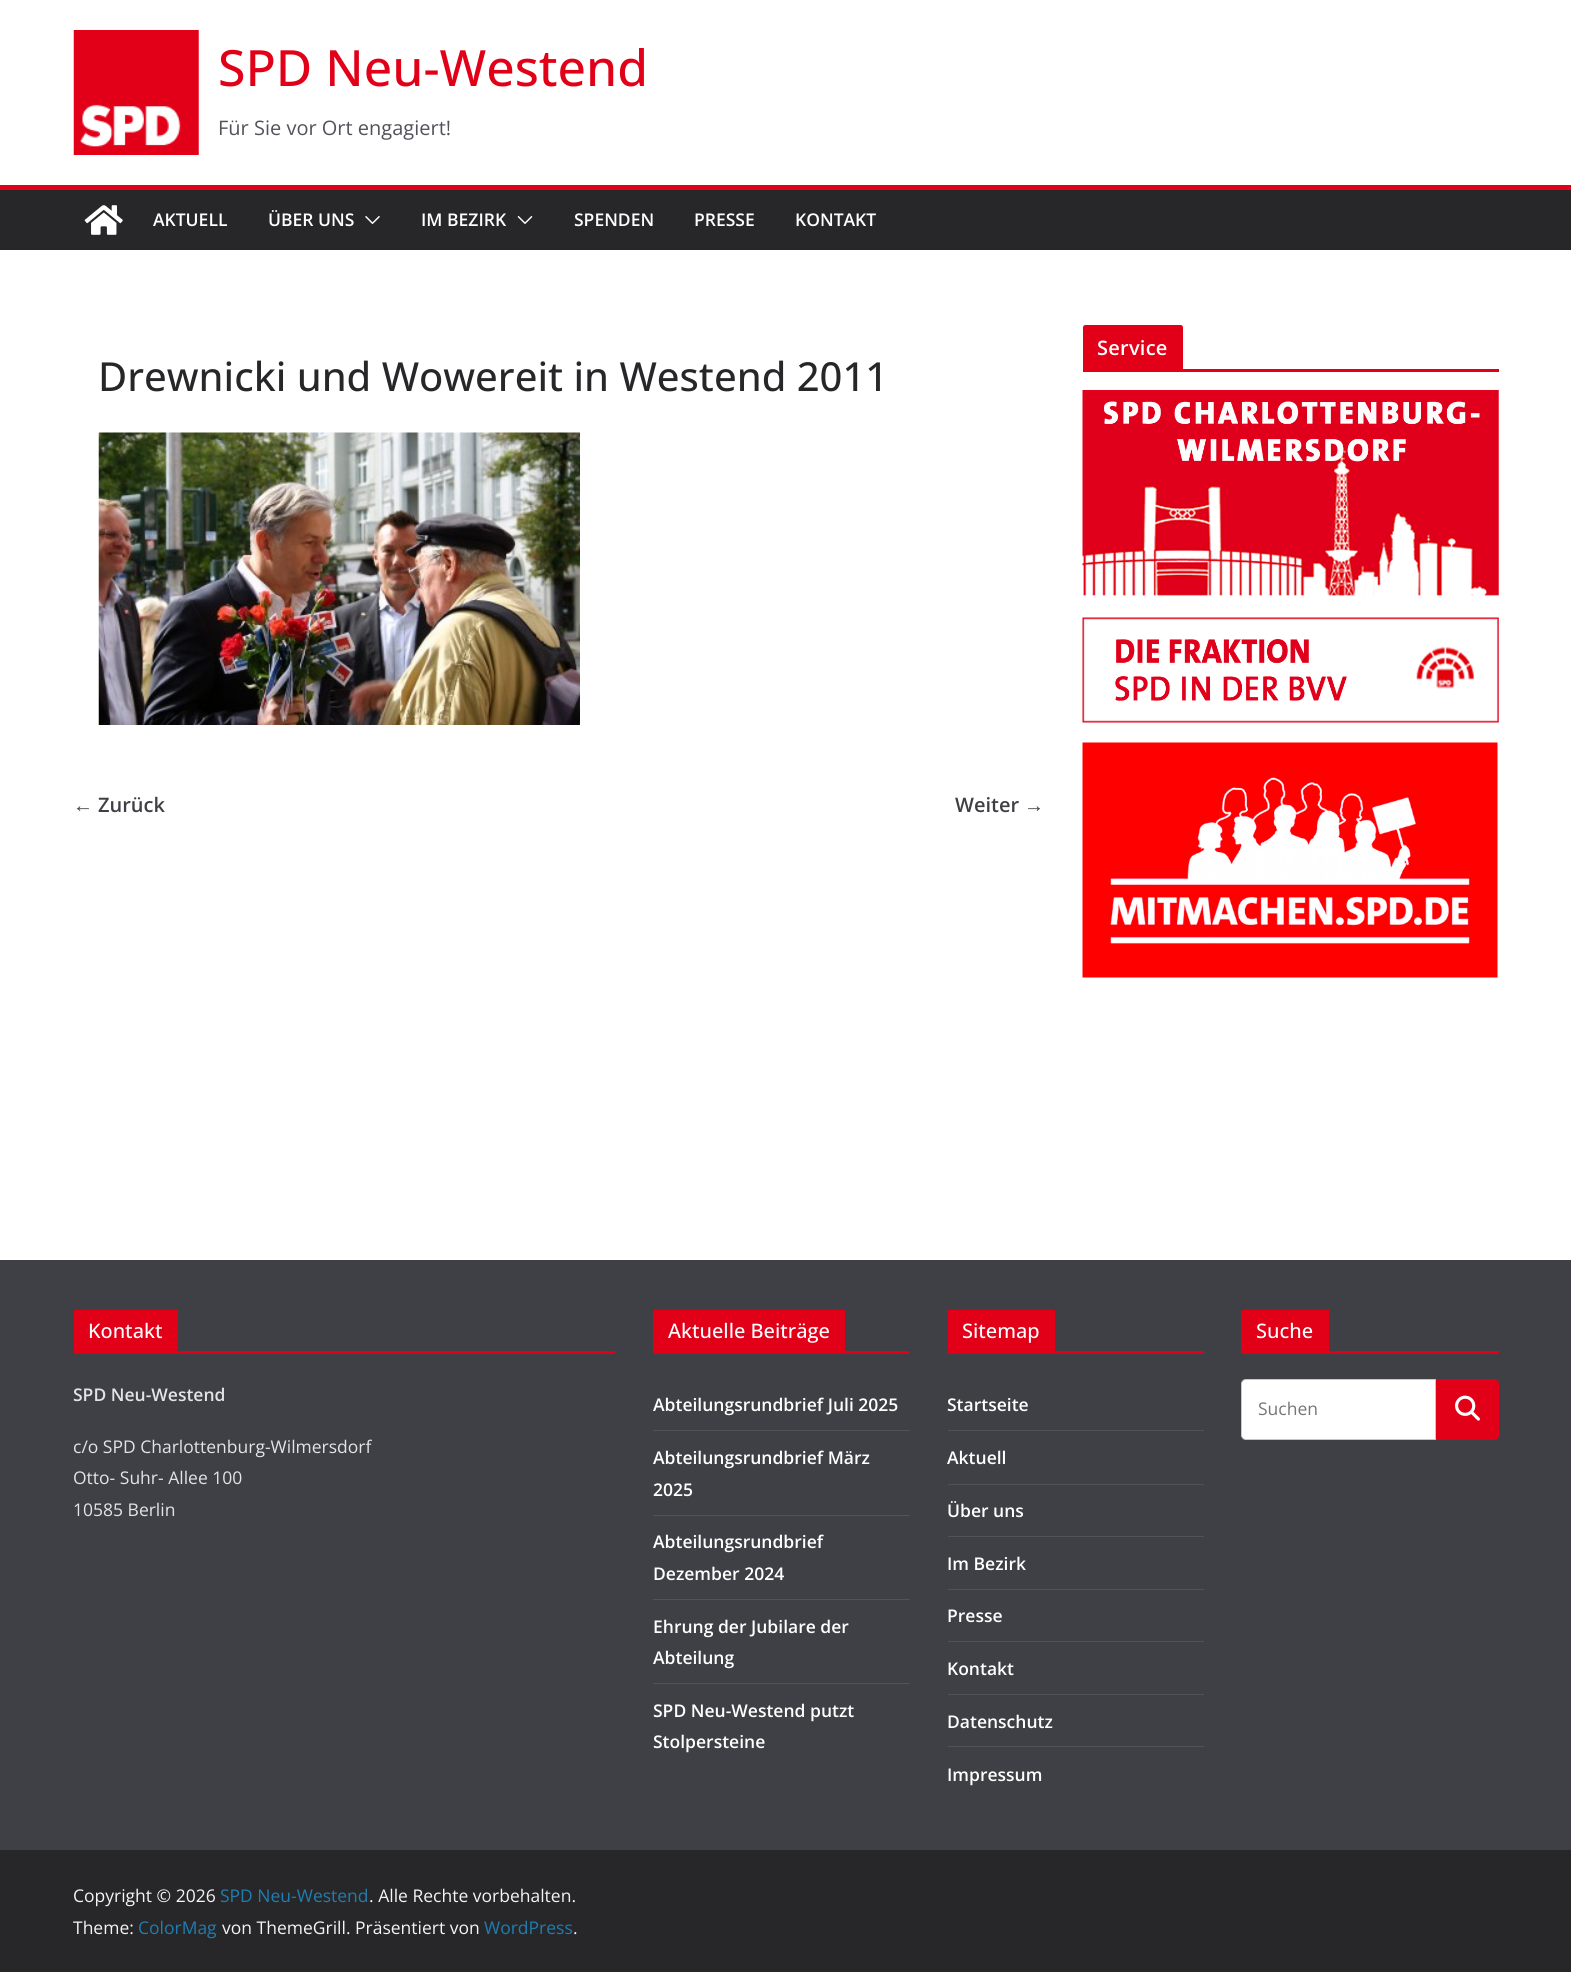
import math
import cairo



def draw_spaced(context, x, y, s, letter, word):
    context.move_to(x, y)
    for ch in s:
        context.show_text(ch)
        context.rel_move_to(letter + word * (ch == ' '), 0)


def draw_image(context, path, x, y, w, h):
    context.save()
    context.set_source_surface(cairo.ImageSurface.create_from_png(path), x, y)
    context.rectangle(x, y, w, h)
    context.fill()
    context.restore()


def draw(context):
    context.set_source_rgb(1, 1, 1)
    context.paint()
    draw_image(context, "images/1.png", 73, 30, 126, 125)
    context.set_source_rgb(39 / 255, 39 / 255, 42 / 255)
    context.rectangle(0, 190, 1571, 60)
    context.fill()
    context.set_source_rgb(226 / 255, 0, 25 / 255)
    context.rectangle(0, 185, 1571, 5)
    context.fill()
    draw_image(context, "images/2.png", 84, 205, 39, 30)
    draw_image(context, "images/3.png", 365, 216, 15, 8)
    draw_image(context, "images/4.png", 517, 216, 16, 8)
    context.rectangle(1083, 369, 416, 3)
    context.fill()
    context.new_path()
    context.move_to(1085.5, 325)
    context.line_to(1180.5, 325)
    context.curve_to(1182, 325, 1183, 326, 1183, 327.5)
    context.line_to(1183, 369)
    context.line_to(1083, 369)
    context.line_to(1083, 327.5)
    context.curve_to(1083, 326, 1084, 325, 1085.5, 325)
    context.close_path()
    context.fill()
    draw_image(context, "images/5.png", 1082, 390, 417, 206)
    draw_image(context, "images/6.png", 1082, 617, 417, 106)
    draw_image(context, "images/7.png", 1082, 742, 416, 236)
    draw_image(context, "images/8.png", 98, 432, 482, 293)
    context.set_source_rgb(63 / 255, 63 / 255, 70 / 255)
    context.rectangle(0, 1260, 1571, 590)
    context.fill()
    context.set_source_rgb(226 / 255, 0, 25 / 255)
    context.rectangle(74, 1351, 541, 3)
    context.fill()
    context.rectangle(74, 1310, 104, 41)
    context.fill()
    context.rectangle(653, 1351, 257, 3)
    context.fill()
    context.rectangle(653, 1310, 192, 41)
    context.fill()
    context.set_source_rgb(82 / 255, 82 / 255, 91 / 255)
    context.rectangle(653, 1430, 257, 1)
    context.fill()
    context.rectangle(653, 1515, 257, 1)
    context.fill()
    context.rectangle(653, 1599, 257, 1)
    context.fill()
    context.rectangle(653, 1683, 257, 1)
    context.fill()
    context.set_source_rgb(226 / 255, 0, 25 / 255)
    context.rectangle(948, 1351, 256, 3)
    context.fill()
    context.rectangle(948, 1310, 107, 41)
    context.fill()
    context.set_source_rgb(82 / 255, 82 / 255, 91 / 255)
    context.rectangle(948, 1430, 256, 1)
    context.fill()
    context.rectangle(948, 1484, 256, 1)
    context.fill()
    context.rectangle(948, 1536, 256, 1)
    context.fill()
    context.rectangle(948, 1589, 256, 1)
    context.fill()
    context.rectangle(948, 1641, 256, 1)
    context.fill()
    context.rectangle(948, 1694, 256, 1)
    context.fill()
    context.rectangle(948, 1746, 256, 1)
    context.fill()
    context.set_source_rgb(226 / 255, 0, 25 / 255)
    context.rectangle(1241, 1351, 258, 3)
    context.fill()
    context.rectangle(1241, 1310, 88, 41)
    context.fill()
    context.set_source_rgb(1, 1, 1)
    context.new_path()
    context.move_to(1246, 1379.5)
    context.line_to(1435.5, 1379.5)
    context.line_to(1435.5, 1439.5)
    context.line_to(1246, 1439.5)
    context.curve_to(1243.5, 1439.5, 1241.5, 1437.5, 1241.5, 1435)
    context.line_to(1241.5, 1384)
    context.curve_to(1241.5, 1381.5, 1243.5, 1379.5, 1246, 1379.5)
    context.close_path()
    context.fill_preserve()
    context.set_source_rgb(199 / 255, 199 / 255, 199 / 255)
    context.set_line_width(1)
    context.stroke()
    context.set_source_rgb(226 / 255, 0, 25 / 255)
    context.new_path()
    context.move_to(1436.5, 1379.5)
    context.line_to(1494, 1379.5)
    context.curve_to(1496.5, 1379.5, 1498.5, 1381.5, 1498.5, 1384)
    context.line_to(1498.5, 1435)
    context.curve_to(1498.5, 1437.5, 1496.5, 1439.5, 1494, 1439.5)
    context.line_to(1436.5, 1439.5)
    context.close_path()
    context.fill_preserve()
    context.stroke()
    draw_image(context, "images/9.png", 1455, 1395, 25, 26)
    context.set_source_rgb(39 / 255, 39 / 255, 42 / 255)
    context.rectangle(0, 1850, 1571, 122)
    context.fill()
    context.select_font_face("Open Sans Medium")
    context.set_font_size(50)
    context.set_source_rgb(226 / 255, 0, 25 / 255)
    context.move_to(218, 86)
    context.show_text("SPD Neu-Westend")
    context.select_font_face("Open Sans")
    context.set_font_size(20)
    context.set_source_rgb(82 / 255, 82 / 255, 91 / 255)
    context.move_to(218, 135)
    context.show_text("Für Sie vor Ort engagiert!")
    context.select_font_face("Open Sans SemiBold")
    context.set_font_size(17.5)
    context.set_source_rgb(1, 1, 1)
    context.move_to(153, 226)
    context.show_text("AKTUELL")
    context.move_to(268, 226)
    context.show_text("ÜBER UNS")
    context.move_to(421, 226)
    context.show_text("IM BEZIRK")
    context.move_to(574, 226)
    context.show_text("SPENDEN")
    context.move_to(694, 226)
    context.show_text("PRESSE")
    context.move_to(795, 226)
    context.show_text("KONTAKT")
    context.set_font_size(20)
    draw_spaced(context, 1097, 355, "Service", 0.25, 0)
    context.select_font_face("Open Sans Medium")
    context.set_font_size(40)
    context.set_source_rgb(39 / 255, 39 / 255, 42 / 255)
    context.move_to(98, 391)
    context.show_text("Drewnicki und Wowereit in Westend 2011")
    context.select_font_face("Liberation Serif", cairo.FontSlant.NORMAL, cairo.FontWeight.BOLD)
    context.set_font_size(20)
    context.set_source_rgb(63 / 255, 63 / 255, 70 / 255)
    context.move_to(73, 812)
    context.show_text("←")
    context.select_font_face("Open Sans SemiBold")
    context.move_to(98, 812)
    context.show_text("Zurück")
    context.move_to(955, 812)
    context.show_text("Weiter")
    context.select_font_face("Liberation Serif", cairo.FontSlant.NORMAL, cairo.FontWeight.BOLD)
    context.move_to(1024, 812)
    context.show_text("→")
    context.select_font_face("Open Sans Medium")
    context.set_source_rgb(1, 1, 1)
    context.move_to(88, 1338)
    context.show_text("Kontakt")
    context.select_font_face("Open Sans SemiBold")
    context.set_font_size(17.5)
    context.set_source_rgb(228 / 255, 228 / 255, 231 / 255)
    context.move_to(73, 1401)
    context.show_text("SPD Neu-Westend")
    context.select_font_face("Open Sans")
    context.move_to(73, 1453)
    context.show_text("c/o SPD Charlottenburg-Wilmersdorf")
    context.move_to(73, 1484)
    context.show_text("Otto- Suhr- Allee 100")
    context.move_to(73, 1516)
    context.show_text("10585 Berlin")
    context.select_font_face("Open Sans Medium")
    context.set_font_size(20)
    context.set_source_rgb(1, 1, 1)
    context.move_to(668, 1338)
    context.show_text("Aktuelle Beiträge")
    context.select_font_face("Open Sans SemiBold")
    context.set_font_size(17.5)
    context.move_to(653, 1411)
    context.show_text("Abteilungsrundbrief Juli 2025")
    context.move_to(653, 1464)
    context.show_text("Abteilungsrundbrief März")
    context.move_to(653, 1496)
    context.show_text("2025")
    context.move_to(653, 1548)
    context.show_text("Abteilungsrundbrief")
    context.move_to(653, 1580)
    context.show_text("Dezember 2024")
    context.move_to(653, 1633)
    context.show_text("Ehrung der Jubilare der")
    context.move_to(653, 1664)
    context.show_text("Abteilung")
    context.move_to(653, 1717)
    context.show_text("SPD Neu-Westend putzt")
    context.move_to(653, 1748)
    context.show_text("Stolpersteine")
    context.select_font_face("Open Sans Medium")
    context.set_font_size(20)
    context.move_to(962, 1338)
    context.show_text("Sitemap")
    context.select_font_face("Open Sans SemiBold")
    context.set_font_size(17.5)
    context.move_to(947, 1411)
    context.show_text("Startseite")
    context.move_to(947, 1464)
    context.show_text("Aktuell")
    context.move_to(947, 1517)
    context.show_text("Über uns")
    context.move_to(947, 1570)
    context.show_text("Im Bezirk")
    context.move_to(947, 1622)
    context.show_text("Presse")
    context.move_to(947, 1675)
    context.show_text("Kontakt")
    context.move_to(947, 1728)
    context.show_text("Datenschutz")
    context.move_to(947, 1781)
    context.show_text("Impressum")
    context.select_font_face("Open Sans Medium")
    context.set_font_size(20)
    context.move_to(1256, 1338)
    context.show_text("Suche")
    context.select_font_face("Open Sans")
    context.set_font_size(17.5)
    context.set_source_rgb(117 / 255, 117 / 255, 117 / 255)
    context.move_to(1258, 1415)
    context.show_text("Suchen")
    context.set_source_rgb(244 / 255, 244 / 255, 245 / 255)
    context.move_to(73, 1902)
    context.show_text("Copyright © 2026")
    context.set_source_rgb(32 / 255, 125 / 255, 175 / 255)
    context.move_to(220, 1902)
    context.show_text("SPD Neu-Westend")
    context.set_source_rgb(244 / 255, 244 / 255, 245 / 255)
    context.move_to(369, 1902)
    context.show_text(". Alle Rechte vorbehalten.")
    context.move_to(73, 1934)
    context.show_text("Theme:")
    context.set_source_rgb(32 / 255, 125 / 255, 175 / 255)
    context.move_to(138, 1934)
    context.show_text("ColorMag")
    context.set_source_rgb(244 / 255, 244 / 255, 245 / 255)
    context.move_to(222, 1934)
    context.show_text("von ThemeGrill. Präsentiert von")
    context.set_source_rgb(32 / 255, 125 / 255, 175 / 255)
    context.move_to(484, 1934)
    context.show_text("WordPress")
    context.set_source_rgb(244 / 255, 244 / 255, 245 / 255)
    context.move_to(573, 1934)
    context.show_text(".")


surface = cairo.ImageSurface(cairo.Format.RGB24, 1571, 1972)
context = cairo.Context(surface)
options = cairo.FontOptions()
options.set_hint_metrics(cairo.HintMetrics.OFF)
options.set_hint_style(cairo.HintStyle.NONE)
context.set_font_options(options)
context.set_miter_limit(4)
draw(context)
surface.write_to_png("out.png")
